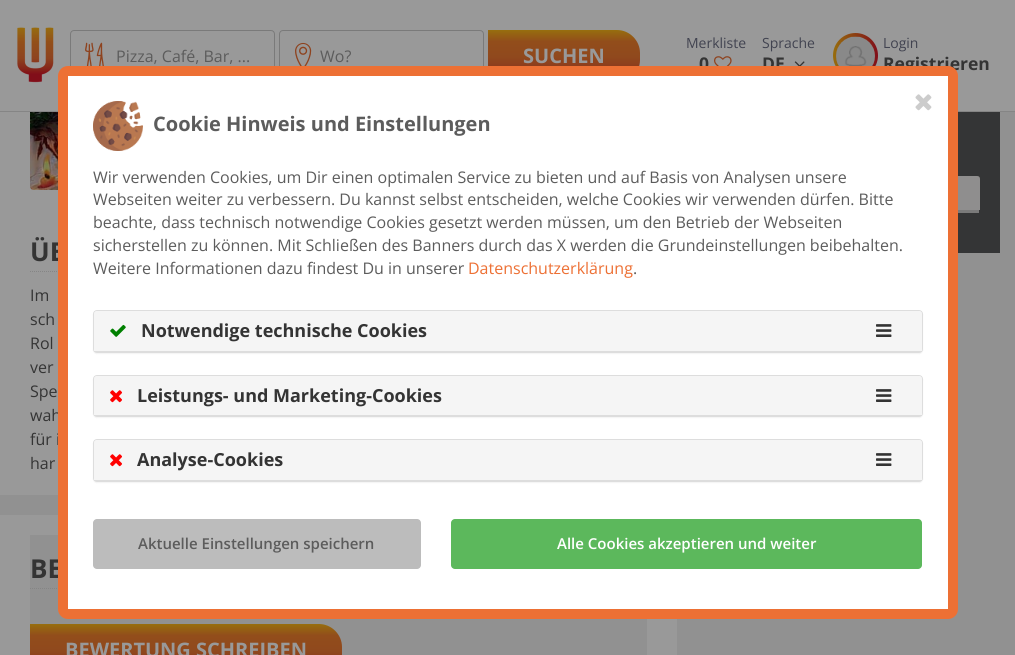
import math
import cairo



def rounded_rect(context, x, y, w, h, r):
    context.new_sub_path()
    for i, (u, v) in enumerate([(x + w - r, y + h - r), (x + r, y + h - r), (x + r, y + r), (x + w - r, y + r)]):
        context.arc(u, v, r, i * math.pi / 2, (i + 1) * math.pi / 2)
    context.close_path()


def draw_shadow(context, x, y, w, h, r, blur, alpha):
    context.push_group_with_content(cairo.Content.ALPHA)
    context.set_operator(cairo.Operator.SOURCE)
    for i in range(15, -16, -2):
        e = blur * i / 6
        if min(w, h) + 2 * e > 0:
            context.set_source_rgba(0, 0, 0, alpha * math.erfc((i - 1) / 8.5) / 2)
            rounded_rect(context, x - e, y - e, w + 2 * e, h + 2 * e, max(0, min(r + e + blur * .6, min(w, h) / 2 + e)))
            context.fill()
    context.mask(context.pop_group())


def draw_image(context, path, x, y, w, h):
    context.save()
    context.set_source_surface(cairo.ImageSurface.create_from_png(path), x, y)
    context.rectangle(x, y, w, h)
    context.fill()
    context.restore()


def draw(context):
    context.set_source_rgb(145 / 255, 145 / 255, 145 / 255)
    context.paint()
    context.set_source_rgb(153 / 255, 153 / 255, 153 / 255)
    context.rectangle(0, 0, 1015, 111)
    context.fill()
    context.set_source_rgb(133 / 255, 133 / 255, 133 / 255)
    context.rectangle(0, 111, 1015, 1)
    context.fill()
    draw_image(context, "images/1.png", 17, 27, 37, 56)
    rounded_rect(context, 70.5, 30.5, 204, 51, 3.5)
    context.set_source_rgb(122 / 255, 122 / 255, 122 / 255)
    context.set_line_width(1)
    context.stroke()
    draw_image(context, "images/2.png", 85, 42, 19, 24)
    rounded_rect(context, 279.5, 30.5, 204, 51, 3.5)
    context.stroke()
    draw_image(context, "images/3.png", 295, 42, 17, 24)
    gradient = cairo.LinearGradient(564, 30, 564, 83)
    gradient.add_color_stop_rgba(0, 151 / 255, 110 / 255, 14 / 255, 1)
    gradient.add_color_stop_rgba(0.22, 146 / 255, 77 / 255, 27 / 255, 1)
    gradient.add_color_stop_rgba(0.5, 144 / 255, 73 / 255, 29 / 255, 1)
    gradient.add_color_stop_rgba(0.75, 139 / 255, 57 / 255, 29 / 255, 1)
    gradient.add_color_stop_rgba(1, 130 / 255, 14 / 255, 25 / 255, 1)
    context.set_source(gradient)
    context.new_path()
    context.move_to(488, 30)
    context.line_to(617, 30)
    context.curve_to(629.5, 30, 640, 40.5, 640, 53)
    context.line_to(640, 60)
    context.curve_to(640, 72.5, 629.5, 83, 617, 83)
    context.line_to(488, 83)
    context.close_path()
    context.fill()
    draw_image(context, "images/4.png", 714, 56, 18, 10)
    draw_image(context, "images/5.png", 794, 61, 11, 5)
    gradient = cairo.LinearGradient(833, 56, 878, 56)
    gradient.add_color_stop_rgba(0, 151 / 255, 109 / 255, 13 / 255, 1)
    gradient.add_color_stop_rgba(1, 129 / 255, 14 / 255, 25 / 255, 1)
    context.set_source(gradient)
    context.arc(855.5, 55.5, 22.5, 0, 2 * math.pi)
    context.fill()
    draw_image(context, "images/6.png", 836, 36, 39, 30)
    context.set_source_rgb(52 / 255, 53 / 255, 54 / 255)
    context.rectangle(958, 112, 42, 141)
    context.fill()
    context.set_source_rgb(143 / 255, 142 / 255, 142 / 255)
    context.new_path()
    context.move_to(715, 176)
    context.line_to(977, 176)
    context.curve_to(979, 176, 980, 177, 980, 179)
    context.line_to(980, 210)
    context.line_to(712, 210)
    context.line_to(712, 179)
    context.curve_to(712, 177, 713, 176, 715, 176)
    context.close_path()
    context.fill()
    context.set_source_rgb(122 / 255, 122 / 255, 122 / 255)
    context.rectangle(958, 210, 21, 3)
    context.fill()
    context.set_source_rgb(153 / 255, 153 / 255, 153 / 255)
    context.rectangle(0, 112, 58, 383)
    context.fill()
    draw_image(context, "images/12.png", 30, 112, 28, 78)
    context.new_path()
    context.move_to(30, 271.5)
    context.line_to(647, 271.5)
    context.set_source_rgb(133 / 255, 133 / 255, 133 / 255)
    context.set_dash([1, 1])
    context.stroke()
    context.set_source_rgb(153 / 255, 153 / 255, 153 / 255)
    context.rectangle(0, 515, 677, 140)
    context.fill()
    context.set_source_rgb(145 / 255, 145 / 255, 145 / 255)
    context.rectangle(30, 535, 617, 120)
    context.fill()
    context.new_path()
    context.move_to(30, 588.5)
    context.line_to(647, 588.5)
    context.set_source_rgb(133 / 255, 133 / 255, 133 / 255)
    context.stroke()
    gradient = cairo.LinearGradient(186, 624, 186, 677)
    gradient.add_color_stop_rgba(0, 151 / 255, 110 / 255, 14 / 255, 1)
    gradient.add_color_stop_rgba(0.22, 146 / 255, 77 / 255, 27 / 255, 1)
    gradient.add_color_stop_rgba(0.5, 144 / 255, 73 / 255, 29 / 255, 1)
    gradient.add_color_stop_rgba(0.75, 139 / 255, 57 / 255, 29 / 255, 1)
    gradient.add_color_stop_rgba(1, 130 / 255, 14 / 255, 25 / 255, 1)
    context.set_source(gradient)
    context.new_path()
    context.move_to(30, 624)
    context.line_to(319, 624)
    context.curve_to(331.5, 624, 342, 634.5, 342, 647)
    context.line_to(342, 654)
    context.curve_to(342, 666.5, 331.5, 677, 319, 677)
    context.line_to(30, 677)
    context.close_path()
    context.fill()
    context.select_font_face("Open Sans")
    context.set_font_size(16)
    context.set_source_rgb(92 / 255, 92 / 255, 92 / 255)
    context.move_to(116, 62)
    context.show_text("Pizza, Café, Bar, ...")
    context.move_to(320, 62)
    context.show_text("Wo?")
    context.select_font_face("Open Sans", cairo.FontSlant.NORMAL, cairo.FontWeight.BOLD)
    context.set_font_size(20)
    context.set_source_rgb(153 / 255, 153 / 255, 153 / 255)
    context.move_to(523, 63)
    context.show_text("SUCHEN")
    context.select_font_face("Open Sans")
    context.set_font_size(14)
    context.set_source_rgb(65 / 255, 67 / 255, 80 / 255)
    context.move_to(686, 48)
    context.show_text("Merkliste")
    context.select_font_face("Open Sans", cairo.FontSlant.NORMAL, cairo.FontWeight.BOLD)
    context.set_font_size(17.5)
    context.set_source_rgb(52 / 255, 52 / 255, 52 / 255)
    context.move_to(699, 70)
    context.show_text("0")
    context.select_font_face("Open Sans")
    context.set_font_size(14)
    context.set_source_rgb(65 / 255, 67 / 255, 80 / 255)
    context.move_to(762, 48)
    context.show_text("Sprache")
    context.select_font_face("Open Sans", cairo.FontSlant.NORMAL, cairo.FontWeight.BOLD)
    context.set_font_size(17.5)
    context.set_source_rgb(52 / 255, 52 / 255, 52 / 255)
    context.move_to(762, 70)
    context.show_text("DE")
    context.select_font_face("Open Sans")
    context.set_font_size(14)
    context.set_source_rgb(65 / 255, 67 / 255, 80 / 255)
    context.move_to(883, 48)
    context.show_text("Login")
    context.select_font_face("Open Sans", cairo.FontSlant.NORMAL, cairo.FontWeight.BOLD)
    context.set_font_size(17.5)
    context.set_source_rgb(52 / 255, 52 / 255, 52 / 255)
    context.move_to(883, 70)
    context.show_text("Registrieren")
    context.set_font_size(26)
    context.move_to(30, 261)
    context.show_text("ÜB")
    context.select_font_face("Open Sans")
    context.set_font_size(16)
    context.move_to(30, 301)
    context.show_text("Im")
    context.move_to(30, 325)
    context.show_text("sch")
    context.move_to(30, 349)
    context.show_text("Rol")
    context.move_to(30, 373)
    context.show_text("ver")
    context.move_to(30, 397)
    context.show_text("Spe")
    context.move_to(30, 421)
    context.show_text("wah")
    context.move_to(30, 445)
    context.show_text("für i")
    context.move_to(30, 469)
    context.show_text("har")
    context.select_font_face("Open Sans", cairo.FontSlant.NORMAL, cairo.FontWeight.BOLD)
    context.set_font_size(26)
    context.move_to(30, 578)
    context.show_text("BE")
    context.set_source_rgb(1, 1, 1)
    rounded_rect(context, 63, 71, 890, 543, 5)
    context.fill_preserve()
    context.set_source_rgb(237 / 255, 112 / 255, 52 / 255)
    context.set_line_width(10)
    context.set_dash([])
    context.stroke()
    context.set_source_rgb(188 / 255, 188 / 255, 188 / 255)
    rounded_rect(context, 93, 519, 328, 50, 4)
    context.fill()
    context.select_font_face("Open Sans SemiBold")
    context.set_font_size(15)
    context.set_source_rgb(92 / 255, 92 / 255, 92 / 255)
    context.move_to(138, 549)
    context.show_text("Aktuelle Einstellungen speichern")
    context.set_source_rgb(92 / 255, 184 / 255, 92 / 255)
    rounded_rect(context, 451, 519, 471, 50, 4)
    context.fill()
    context.set_source_rgb(1, 1, 1)
    context.move_to(557, 549)
    context.show_text("Alle Cookies akzeptieren und weiter")
    context.set_source_rgb(0, 0, 0)
    draw_shadow(context, 93, 440, 830, 43, 4, 0.5, 0.05)
    rounded_rect(context, 93.5, 439.5, 829, 42, 3.5)
    context.set_source_rgb(221 / 255, 221 / 255, 221 / 255)
    context.set_line_width(1)
    context.stroke()
    context.set_source_rgb(245 / 255, 245 / 255, 245 / 255)
    context.new_path()
    context.move_to(97, 440)
    context.line_to(919, 440)
    context.curve_to(920.5, 440, 922, 441.5, 922, 443)
    context.line_to(922, 481)
    context.line_to(94, 481)
    context.line_to(94, 443)
    context.curve_to(94, 441.5, 95.5, 440, 97, 440)
    context.close_path()
    context.fill()
    draw_image(context, "images/10.png", 876, 453, 16, 13)
    context.set_source_rgb(0, 0, 0)
    draw_shadow(context, 93, 376, 830, 42, 4, 0.5, 0.05)
    rounded_rect(context, 93.5, 375.5, 829, 41, 3.5)
    context.set_source_rgb(221 / 255, 221 / 255, 221 / 255)
    context.stroke()
    context.set_source_rgb(245 / 255, 245 / 255, 245 / 255)
    context.new_path()
    context.move_to(97, 376)
    context.line_to(919, 376)
    context.curve_to(920.5, 376, 922, 377.5, 922, 379)
    context.line_to(922, 416)
    context.line_to(94, 416)
    context.line_to(94, 379)
    context.curve_to(94, 377.5, 95.5, 376, 97, 376)
    context.close_path()
    context.fill()
    draw_image(context, "images/10.png", 876, 389, 16, 13)
    context.set_source_rgb(0, 0, 0)
    draw_shadow(context, 93, 311, 830, 43, 4, 0.5, 0.05)
    rounded_rect(context, 93.5, 310.5, 829, 42, 3.5)
    context.set_source_rgb(221 / 255, 221 / 255, 221 / 255)
    context.stroke()
    context.set_source_rgb(245 / 255, 245 / 255, 245 / 255)
    context.new_path()
    context.move_to(97, 311)
    context.line_to(919, 311)
    context.curve_to(920.5, 311, 922, 312.5, 922, 314)
    context.line_to(922, 352)
    context.line_to(94, 352)
    context.line_to(94, 314)
    context.curve_to(94, 312.5, 95.5, 311, 97, 311)
    context.close_path()
    context.fill()
    draw_image(context, "images/10.png", 876, 324, 16, 13)
    context.select_font_face("Open Sans", cairo.FontSlant.NORMAL, cairo.FontWeight.BOLD)
    context.set_font_size(18)
    context.set_source_rgb(52 / 255, 52 / 255, 52 / 255)
    context.move_to(137, 466)
    context.show_text("Analyse-Cookies")
    draw_image(context, "images/11.png", 110, 454, 12, 13)
    context.move_to(137, 402)
    context.show_text("Leistungs- und Marketing-Cookies")
    draw_image(context, "images/11.png", 110, 390, 12, 13)
    context.move_to(141, 337)
    context.show_text("Notwendige technische Cookies")
    draw_image(context, "images/9.png", 110, 324, 16, 13)
    context.set_source_rgb(221 / 255, 221 / 255, 221 / 255)
    context.rectangle(94, 480, 828, 1)
    context.fill()
    context.rectangle(94, 415, 828, 1)
    context.fill()
    context.rectangle(94, 351, 828, 1)
    context.fill()
    context.select_font_face("Open Sans")
    context.set_font_size(16)
    context.set_source_rgb(92 / 255, 92 / 255, 92 / 255)
    context.move_to(633, 274)
    context.show_text(".")
    context.set_source_rgb(237 / 255, 112 / 255, 52 / 255)
    context.move_to(468, 274)
    context.show_text("Datenschutzerklärung")
    context.set_source_rgb(92 / 255, 92 / 255, 92 / 255)
    context.move_to(93, 274)
    context.show_text("Weitere Informationen dazu findest Du in unserer")
    context.move_to(93, 251)
    context.show_text("sicherstellen zu können. Mit Schließen des Banners durch das X werden die Grundeinstellungen beibehalten.")
    context.move_to(93, 228)
    context.show_text("beachte, dass technisch notwendige Cookies gesetzt werden müssen, um den Betrieb der Webseiten")
    context.move_to(93, 205)
    context.show_text("Webseiten weiter zu verbessern. Du kannst selbst entscheiden, welche Cookies wir verwenden dürfen. Bitte")
    context.move_to(93, 183)
    context.show_text("Wir verwenden Cookies, um Dir einen optimalen Service zu bieten und auf Basis von Analysen unsere")
    draw_image(context, "images/7.png", 915, 94, 17, 17)
    context.select_font_face("Open Sans", cairo.FontSlant.NORMAL, cairo.FontWeight.BOLD)
    context.set_font_size(20)
    context.move_to(153, 131)
    context.show_text("Cookie Hinweis und Einstellungen")
    draw_image(context, "images/8.png", 93, 101, 50, 50)
    context.set_source_rgb(153 / 255, 153 / 255, 153 / 255)
    context.move_to(65, 657)
    context.show_text("BEWERTUNG SCHREIBEN")


surface = cairo.ImageSurface(cairo.Format.RGB24, 1015, 655)
context = cairo.Context(surface)
options = cairo.FontOptions()
options.set_hint_metrics(cairo.HintMetrics.OFF)
options.set_hint_style(cairo.HintStyle.NONE)
context.set_font_options(options)
context.set_miter_limit(4)
draw(context)
surface.write_to_png("out.png")
